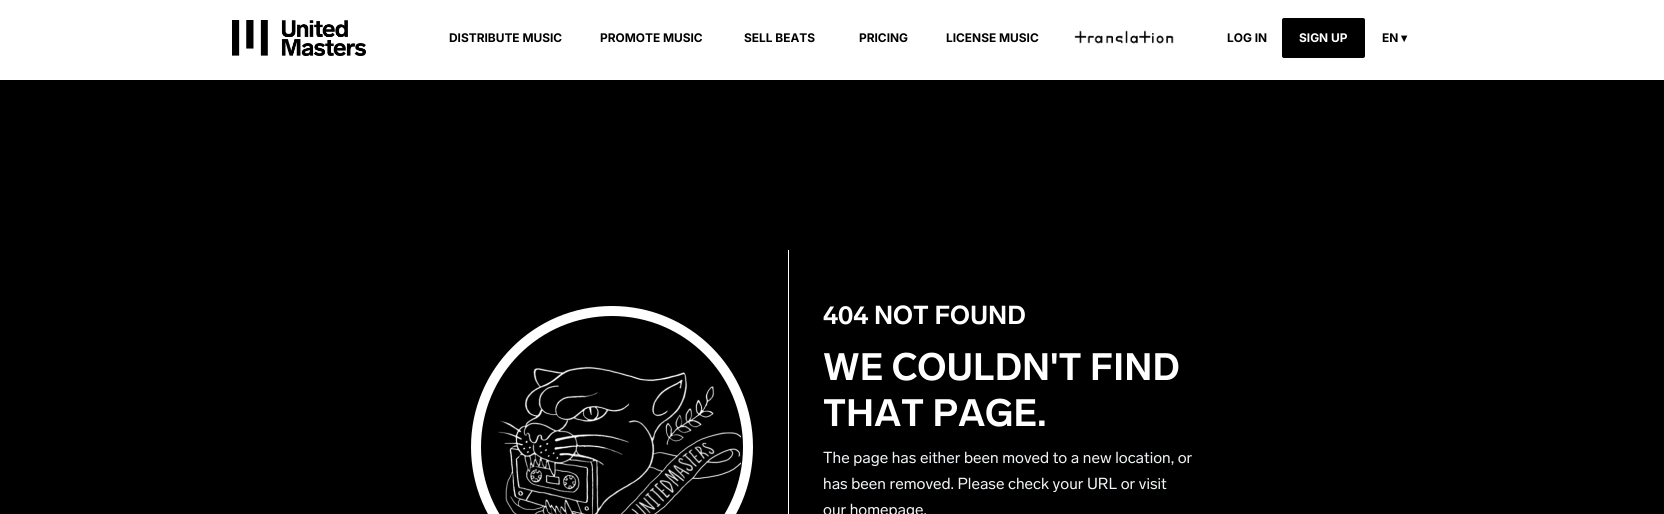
import math
import cairo



def rounded_rect(context, x, y, w, h, r):
    context.new_sub_path()
    for i, (u, v) in enumerate([(x + w - r, y + h - r), (x + r, y + h - r), (x + r, y + r), (x + w - r, y + r)]):
        context.arc(u, v, r, i * math.pi / 2, (i + 1) * math.pi / 2)
    context.close_path()


def draw_image(context, path, x, y, w, h):
    context.save()
    context.set_source_surface(cairo.ImageSurface.create_from_png(path), x, y)
    context.rectangle(x, y, w, h)
    context.fill()
    context.restore()


def draw(context):
    context.set_source_rgb(1, 1, 1)
    context.paint()
    draw_image(context, "images/1.png", 232, 20, 134, 36)
    draw_image(context, "images/2.png", 1074, 30, 100, 14)
    context.set_source_rgb(0, 0, 0)
    rounded_rect(context, 1282, 18, 83, 40, 2)
    context.fill()
    context.rectangle(0, 80, 1664, 434)
    context.fill()
    context.arc(612, 447, 136, 0, 2 * math.pi)
    context.set_source_rgb(1, 1, 1)
    context.set_line_width(10)
    context.stroke()
    context.rectangle(788, 250, 1, 264)
    context.fill()
    draw_image(context, "images/3.png", 498, 366, 243, 148)
    context.select_font_face("Inter", cairo.FontSlant.NORMAL, cairo.FontWeight.BOLD)
    context.set_font_size(11.9)
    context.set_source_rgb(0, 0, 0)
    context.move_to(449, 42)
    context.show_text("DISTRIBUTE MUSIC")
    context.move_to(600, 42)
    context.show_text("PROMOTE MUSIC")
    context.move_to(744, 42)
    context.show_text("SELL BEATS")
    context.move_to(859, 42)
    context.show_text("PRICING")
    context.move_to(946, 42)
    context.show_text("LICENSE MUSIC")
    context.move_to(1227, 42)
    context.show_text("LOG IN")
    context.set_source_rgb(1, 1, 1)
    context.move_to(1299, 42)
    context.show_text("SIGN UP")
    context.set_source_rgb(0, 0, 0)
    context.move_to(1382, 42)
    context.show_text("EN")
    context.select_font_face("DejaVu Sans", cairo.FontSlant.NORMAL, cairo.FontWeight.BOLD)
    context.move_to(1401, 42)
    context.show_text("▾")
    context.select_font_face("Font", cairo.FontSlant.NORMAL, cairo.FontWeight.BOLD)
    context.set_font_size(25.75)
    context.set_source_rgb(1, 1, 1)
    context.move_to(823, 324)
    context.show_text("404 NOT FOUND")
    context.set_font_size(37.75)
    context.move_to(823, 380)
    context.show_text("WE COULDN'T FIND")
    context.move_to(823, 426)
    context.show_text("THAT PAGE.")
    context.select_font_face("Font")
    context.set_font_size(15.85)
    context.set_source_rgb(240 / 255, 243 / 255, 245 / 255)
    context.move_to(823, 463)
    context.show_text("The page has either been moved to a new location, or")
    context.move_to(823, 489)
    context.show_text("has been removed. Please check your URL or visit")
    context.move_to(823, 515)
    context.show_text("our homepage.")


surface = cairo.ImageSurface(cairo.Format.RGB24, 1664, 514)
context = cairo.Context(surface)
options = cairo.FontOptions()
options.set_hint_metrics(cairo.HintMetrics.OFF)
options.set_hint_style(cairo.HintStyle.NONE)
context.set_font_options(options)
context.set_miter_limit(4)
draw(context)
surface.write_to_png("out.png")
